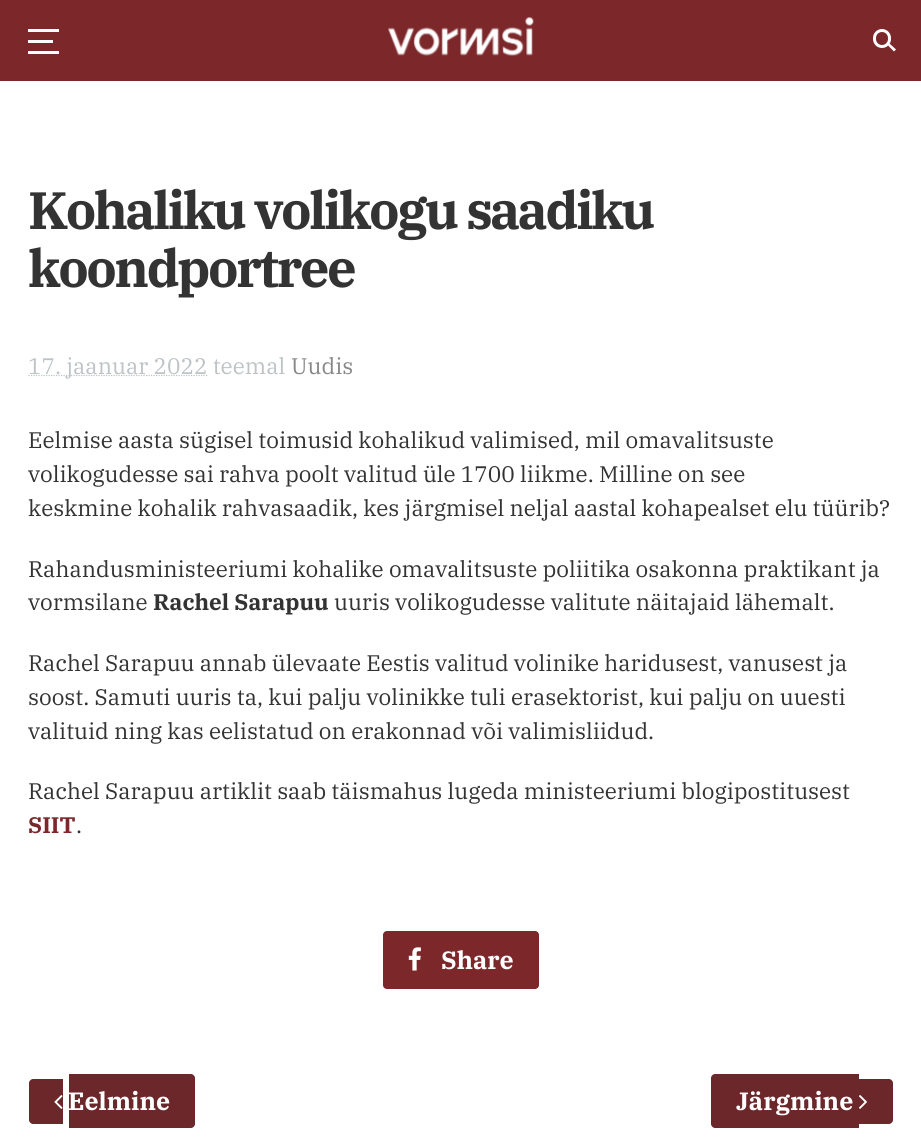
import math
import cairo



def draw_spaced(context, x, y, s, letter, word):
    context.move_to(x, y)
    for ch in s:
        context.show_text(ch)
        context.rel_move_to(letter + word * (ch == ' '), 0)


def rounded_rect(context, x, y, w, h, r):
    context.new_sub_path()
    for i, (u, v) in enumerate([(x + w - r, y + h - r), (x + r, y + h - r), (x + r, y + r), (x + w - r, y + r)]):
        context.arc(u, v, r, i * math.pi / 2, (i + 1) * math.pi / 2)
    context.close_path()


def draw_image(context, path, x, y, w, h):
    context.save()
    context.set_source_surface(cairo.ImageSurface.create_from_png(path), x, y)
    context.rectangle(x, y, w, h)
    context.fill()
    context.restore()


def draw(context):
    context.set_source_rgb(1, 1, 1)
    context.paint()
    context.set_source_rgb(124 / 255, 39 / 255, 42 / 255)
    context.rectangle(0, 0, 921, 81)
    context.fill()
    context.set_source_rgb(1, 1, 1)
    context.rectangle(28, 29, 31, 3)
    context.fill()
    context.rectangle(28, 40, 25, 3)
    context.fill()
    context.rectangle(28, 51, 31, 3)
    context.fill()
    draw_image(context, "images/1.png", 388, 17, 146, 39)
    rounded_rect(context, 874.5, 30.5, 15, 16, 7.5)
    context.set_line_width(3)
    context.stroke()
    context.new_path()
    context.move_to(889.5, 43.5)
    context.line_to(896, 49.5)
    context.line_to(894, 51.5)
    context.line_to(888, 45.5)
    context.close_path()
    context.fill()
    context.new_path()
    context.move_to(28.5, 375.5)
    context.line_to(207.5, 375.5)
    context.set_source_rgb(189 / 255, 195 / 255, 199 / 255)
    context.set_line_width(1.2)
    context.set_dash([1.25, 1.25])
    context.stroke()
    context.set_source_rgb(124 / 255, 39 / 255, 42 / 255)
    rounded_rect(context, 383, 931, 156, 58, 4)
    context.fill()
    draw_image(context, "images/2.png", 408, 947, 13, 24)
    context.set_source_rgb(108 / 255, 39 / 255, 42 / 255)
    context.new_path()
    context.move_to(33, 1079)
    context.line_to(63, 1079)
    context.line_to(63, 1124)
    context.line_to(33, 1124)
    context.curve_to(31, 1124, 29, 1122, 29, 1120)
    context.line_to(29, 1083)
    context.curve_to(29, 1081, 31, 1079, 33, 1079)
    context.close_path()
    context.fill()
    context.new_path()
    context.move_to(69, 1074)
    context.line_to(191, 1074)
    context.curve_to(193, 1074, 195, 1076, 195, 1078)
    context.line_to(195, 1124)
    context.curve_to(195, 1126, 193, 1128, 191, 1128)
    context.line_to(69, 1128)
    context.close_path()
    context.fill()
    draw_image(context, "images/3.png", 54, 1095, 9, 14)
    context.new_path()
    context.move_to(715, 1074)
    context.line_to(859, 1074)
    context.line_to(859, 1128)
    context.line_to(715, 1128)
    context.curve_to(713, 1128, 711, 1126, 711, 1124)
    context.line_to(711, 1078)
    context.curve_to(711, 1076, 713, 1074, 715, 1074)
    context.close_path()
    context.fill()
    context.new_path()
    context.move_to(859, 1079)
    context.line_to(889, 1079)
    context.curve_to(891, 1079, 893, 1081, 893, 1083)
    context.line_to(893, 1120)
    context.curve_to(893, 1122, 891, 1124, 889, 1124)
    context.line_to(859, 1124)
    context.close_path()
    context.fill()
    draw_image(context, "images/4.png", 859, 1095, 8, 14)
    context.select_font_face("IBM Plex Serif", cairo.FontSlant.NORMAL, cairo.FontWeight.BOLD)
    context.set_font_size(52.5)
    context.set_source_rgb(51 / 255, 51 / 255, 51 / 255)
    draw_spaced(context, 28, 229, "Kohaliku volikogu saadiku", -2.5, 0)
    draw_spaced(context, 28, 287, "koondportree", -2.5, 0)
    context.select_font_face("IBM Plex Serif")
    context.set_font_size(22.5)
    context.set_source_rgb(189 / 255, 195 / 255, 199 / 255)
    context.move_to(28, 374)
    context.show_text("17. jaanuar 2022 teemal")
    context.set_source_rgb(136 / 255, 136 / 255, 136 / 255)
    context.move_to(291, 374)
    context.show_text("Uudis")
    context.set_source_rgb(51 / 255, 51 / 255, 51 / 255)
    context.move_to(28, 448)
    context.show_text("Eelmise aasta sügisel toimusid kohalikud valimised, mil omavalitsuste")
    context.move_to(28, 482)
    context.show_text("volikogudesse sai rahva poolt valitud üle 1700 liikme. Milline on see")
    context.move_to(28, 516)
    context.show_text("keskmine kohalik rahvasaadik, kes järgmisel neljal aastal kohapealset elu tüürib?")
    context.move_to(28, 577)
    context.show_text("Rahandusministeeriumi kohalike omavalitsuste poliitika osakonna praktikant ja")
    context.move_to(28, 610)
    context.show_text("vormsilane")
    context.select_font_face("IBM Plex Serif", cairo.FontSlant.NORMAL, cairo.FontWeight.BOLD)
    context.move_to(153, 610)
    context.show_text("Rachel Sarapuu")
    context.select_font_face("IBM Plex Serif")
    context.move_to(334, 610)
    context.show_text("uuris volikogudesse valitute näitajaid lähemalt.")
    context.move_to(28, 671)
    context.show_text("Rachel Sarapuu annab ülevaate Eestis valitud volinike haridusest, vanusest ja")
    context.move_to(28, 705)
    context.show_text("soost. Samuti uuris ta, kui palju volinikke tuli erasektorist, kui palju on uuesti")
    context.move_to(28, 739)
    context.show_text("valituid ning kas eelistatud on erakonnad või valimisliidud.")
    context.move_to(28, 799)
    context.show_text("Rachel Sarapuu artiklit saab täismahus lugeda ministeeriumi blogipostitusest")
    context.select_font_face("IBM Plex Serif", cairo.FontSlant.NORMAL, cairo.FontWeight.BOLD)
    context.set_source_rgb(124 / 255, 39 / 255, 42 / 255)
    context.move_to(28, 833)
    context.show_text("SIIT")
    context.select_font_face("IBM Plex Serif")
    context.set_source_rgb(51 / 255, 51 / 255, 51 / 255)
    context.move_to(76, 833)
    context.show_text(".")
    context.select_font_face("IBM Plex Serif", cairo.FontSlant.NORMAL, cairo.FontWeight.BOLD)
    context.set_font_size(25)
    context.set_source_rgb(1, 1, 1)
    context.move_to(441, 969)
    context.show_text("Share")
    context.move_to(68, 1110)
    context.show_text("Eelmine")
    context.move_to(736, 1110)
    context.show_text("Järgmine")


surface = cairo.ImageSurface(cairo.Format.RGB24, 921, 1141)
context = cairo.Context(surface)
options = cairo.FontOptions()
options.set_hint_metrics(cairo.HintMetrics.OFF)
options.set_hint_style(cairo.HintStyle.NONE)
context.set_font_options(options)
context.set_miter_limit(4)
draw(context)
surface.write_to_png("out.png")
